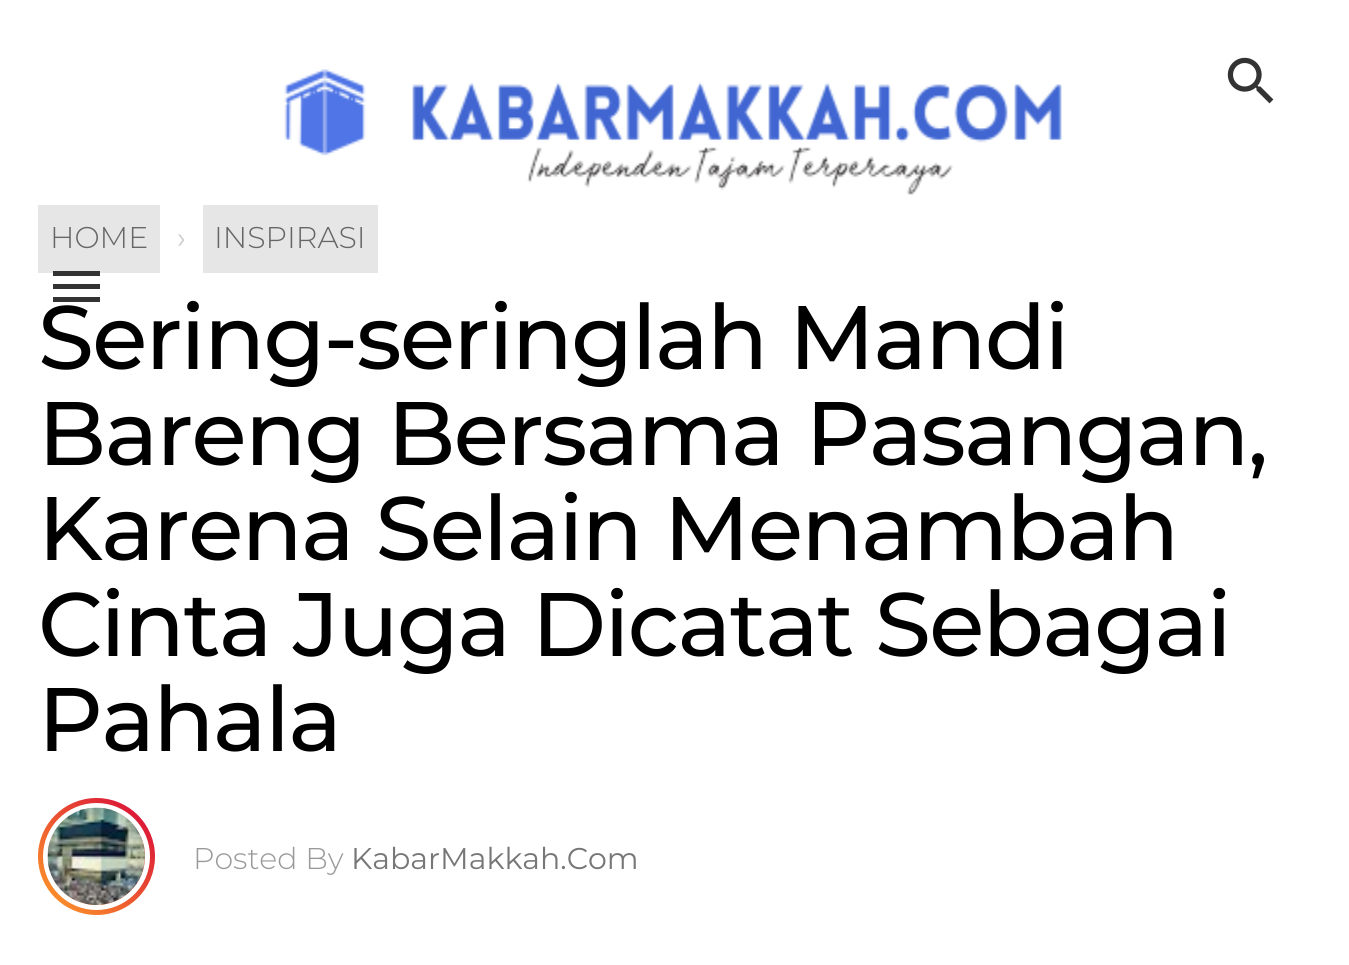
import math
import cairo



def draw_spaced(context, x, y, s, letter, word):
    context.move_to(x, y)
    for ch in s:
        context.show_text(ch)
        context.rel_move_to(letter + word * (ch == ' '), 0)


def draw_image(context, path, x, y, w, h):
    context.save()
    context.set_source_surface(cairo.ImageSurface.create_from_png(path), x, y)
    context.rectangle(x, y, w, h)
    context.fill()
    context.restore()


def draw(context):
    context.set_source_rgb(1, 1, 1)
    context.paint()
    draw_image(context, "images/1.png", 284, 69, 778, 126)
    draw_image(context, "images/2.png", 1227, 57, 47, 47)
    context.set_source_rgb(230 / 255, 230 / 255, 230 / 255)
    context.rectangle(38, 205, 122, 68)
    context.fill()
    context.rectangle(203, 205, 175, 68)
    context.fill()
    gradient = cairo.LinearGradient(38, 915, 155, 798)
    gradient.add_color_stop_rgba(0, 1, 161 / 255, 40 / 255, 1)
    gradient.add_color_stop_rgba(1, 214 / 255, 3 / 255, 58 / 255, 1)
    context.set_source(gradient)
    context.arc(96.5, 856.5, 58.5, 0, 2 * math.pi)
    context.fill()
    context.arc(96.5, 856.5, 51, 0, 2 * math.pi)
    context.set_source_rgb(1, 1, 1)
    context.set_line_width(5)
    context.stroke()
    draw_image(context, "images/3.png", 47, 807, 98, 98)
    context.select_font_face("Montserrat Light")
    context.set_font_size(30)
    context.set_source_rgb(102 / 255, 102 / 255, 102 / 255)
    context.move_to(50, 248)
    context.show_text("HOME")
    context.select_font_face("Montserrat")
    context.set_source_rgb(204 / 255, 204 / 255, 204 / 255)
    context.move_to(177, 248)
    context.show_text("›")
    context.select_font_face("Montserrat Light")
    context.set_source_rgb(102 / 255, 102 / 255, 102 / 255)
    context.move_to(214, 248)
    context.show_text("INSPIRASI")
    context.select_font_face("Montserrat Medium")
    context.set_font_size(90)
    context.set_source_rgb(0, 0, 0)
    draw_spaced(context, 38, 369, "Sering-seringlah Mandi", -1.75, 0)
    context.set_source_rgb(51 / 255, 51 / 255, 51 / 255)
    context.new_path()
    context.move_to(53, 271)
    context.line_to(100, 271)
    context.line_to(100, 276)
    context.line_to(53, 276)
    context.line_to(53, 271)
    context.move_to(53, 284)
    context.line_to(100, 284)
    context.line_to(100, 289)
    context.line_to(53, 289)
    context.line_to(53, 284)
    context.move_to(53, 297)
    context.line_to(100, 297)
    context.line_to(100, 302)
    context.line_to(53, 302)
    context.close_path()
    context.fill()
    context.set_source_rgb(0, 0, 0)
    draw_spaced(context, 38, 465, "Bareng Bersama Pasangan,", -1.75, 0)
    draw_spaced(context, 38, 560, "Karena Selain Menambah", -1.75, 0)
    draw_spaced(context, 38, 656, "Cinta Juga Dicatat Sebagai", -1.75, 0)
    draw_spaced(context, 38, 751, "Pahala", -1.75, 0)
    context.select_font_face("Montserrat Light")
    context.set_font_size(30)
    context.set_source_rgb(153 / 255, 153 / 255, 153 / 255)
    context.move_to(193, 869)
    context.show_text("Posted By")
    context.select_font_face("Montserrat")
    context.set_source_rgb(119 / 255, 119 / 255, 119 / 255)
    context.move_to(351, 869)
    context.show_text("KabarMakkah.Com")


surface = cairo.ImageSurface(cairo.Format.RGB24, 1349, 965)
context = cairo.Context(surface)
options = cairo.FontOptions()
options.set_hint_metrics(cairo.HintMetrics.OFF)
options.set_hint_style(cairo.HintStyle.NONE)
context.set_font_options(options)
context.set_miter_limit(4)
draw(context)
surface.write_to_png("out.png")
